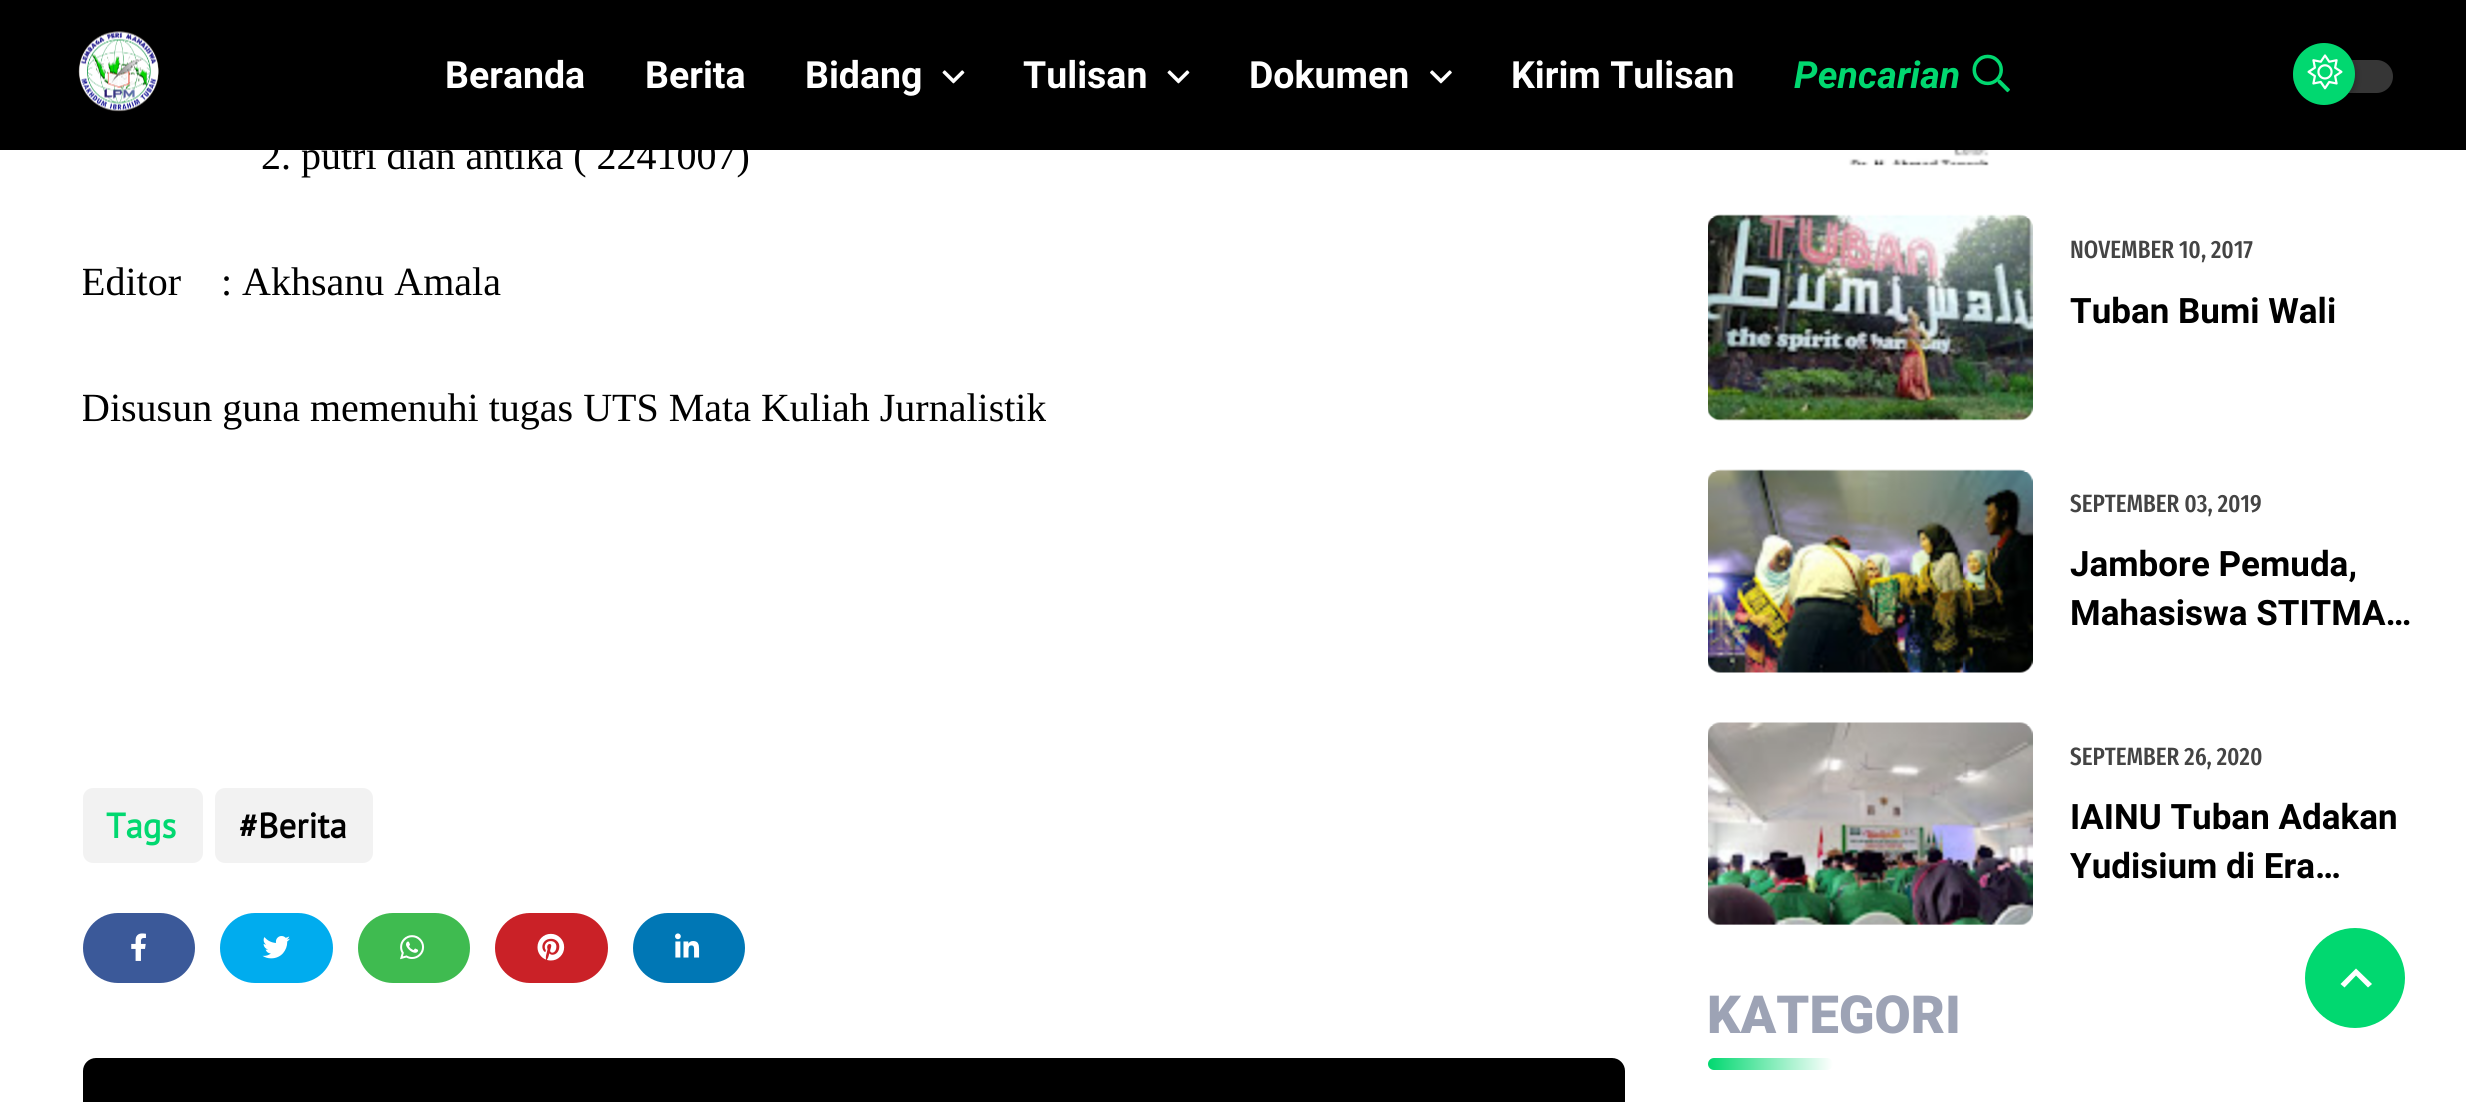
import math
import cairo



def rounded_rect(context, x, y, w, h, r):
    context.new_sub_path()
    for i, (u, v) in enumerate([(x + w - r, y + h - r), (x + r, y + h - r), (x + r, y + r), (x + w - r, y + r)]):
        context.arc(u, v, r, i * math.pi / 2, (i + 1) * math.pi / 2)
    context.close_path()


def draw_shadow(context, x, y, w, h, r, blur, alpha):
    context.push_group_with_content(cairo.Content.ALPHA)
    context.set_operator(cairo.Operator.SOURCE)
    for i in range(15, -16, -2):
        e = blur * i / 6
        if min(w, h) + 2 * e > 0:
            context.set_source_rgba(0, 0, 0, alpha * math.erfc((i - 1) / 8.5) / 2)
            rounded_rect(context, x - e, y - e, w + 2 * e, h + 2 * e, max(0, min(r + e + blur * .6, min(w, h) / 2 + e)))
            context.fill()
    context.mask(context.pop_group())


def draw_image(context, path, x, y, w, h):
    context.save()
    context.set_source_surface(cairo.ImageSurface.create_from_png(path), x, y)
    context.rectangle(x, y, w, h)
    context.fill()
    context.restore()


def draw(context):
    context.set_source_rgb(1, 1, 1)
    context.paint()
    context.set_source_rgb(0, 0, 0)
    context.rectangle(0, 0, 2466, 150)
    context.fill()
    draw_image(context, "images/1.png", 78, 31, 81, 81)
    draw_image(context, "images/2.png", 942, 70, 23, 14)
    draw_image(context, "images/2.png", 1167, 70, 23, 14)
    draw_image(context, "images/3.png", 1430, 70, 22, 14)
    draw_image(context, "images/4.png", 1972, 54, 38, 39)
    context.set_source_rgb(54 / 255, 54 / 255, 54 / 255)
    rounded_rect(context, 2293, 60, 100, 33, 16.5)
    context.fill()
    context.set_source_rgb(0, 0, 0)
    draw_shadow(context, 2293, 45, 62, 63, 31, 4, 0.3)
    context.set_source_rgb(1 / 255, 216 / 255, 112 / 255)
    context.arc(2324, 74, 31, 0, 2 * math.pi)
    context.fill()
    draw_image(context, "images/5.png", 2307, 54, 36, 36)
    context.set_source_rgb(242 / 255, 242 / 255, 242 / 255)
    rounded_rect(context, 83, 788, 120, 75, 10)
    context.fill()
    rounded_rect(context, 215, 788, 158, 75, 10)
    context.fill()
    context.set_source_rgb(59 / 255, 89 / 255, 153 / 255)
    rounded_rect(context, 83, 913, 112, 70, 35)
    context.fill()
    draw_image(context, "images/6.png", 131, 933, 15, 28)
    context.set_source_rgb(0, 172 / 255, 238 / 255)
    rounded_rect(context, 220, 913, 113, 70, 35)
    context.fill()
    draw_image(context, "images/7.png", 262, 936, 28, 23)
    context.set_source_rgb(63 / 255, 187 / 255, 80 / 255)
    rounded_rect(context, 358, 913, 112, 70, 35)
    context.fill()
    draw_image(context, "images/8.png", 400, 935, 25, 25)
    context.set_source_rgb(202 / 255, 33 / 255, 39 / 255)
    rounded_rect(context, 495, 913, 113, 70, 35)
    context.fill()
    draw_image(context, "images/9.png", 537, 933, 28, 28)
    context.set_source_rgb(0, 119 / 255, 181 / 255)
    rounded_rect(context, 633, 913, 112, 70, 35)
    context.fill()
    draw_image(context, "images/10.png", 675, 933, 25, 25)
    context.set_source_rgb(0, 0, 0)
    rounded_rect(context, 83, 1058, 1542, 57, 13)
    context.fill()
    draw_image(context, "images/11.png", 1756, 150, 233, 16)
    draw_image(context, "images/12.png", 1708, 214, 325, 207)
    draw_image(context, "images/13.png", 1708, 469, 325, 204)
    draw_image(context, "images/14.png", 1708, 722, 325, 203)
    gradient = cairo.LinearGradient(1708, 1064, 1833, 1064)
    gradient.add_color_stop_rgba(0, 1 / 255, 216 / 255, 112 / 255, 1)
    gradient.add_color_stop_rgba(1, 1, 1, 1, 1)
    context.set_source(gradient)
    rounded_rect(context, 1708, 1058, 125, 12, 6)
    context.fill()
    context.set_source_rgb(1 / 255, 216 / 255, 112 / 255)
    context.arc(2355, 978, 50, 0, 2 * math.pi)
    context.fill()
    context.set_source_rgb(1, 1, 1)
    context.new_path()
    context.move_to(2344.5, 987.5)
    context.line_to(2356, 975.5)
    context.line_to(2368, 987.5)
    context.line_to(2372, 984)
    context.line_to(2356, 968.5)
    context.line_to(2340.5, 984)
    context.close_path()
    context.fill()
    context.select_font_face("Roboto", cairo.FontSlant.NORMAL, cairo.FontWeight.BOLD)
    context.set_font_size(37.5)
    context.move_to(445, 88)
    context.show_text("Beranda")
    context.move_to(645, 88)
    context.show_text("Berita")
    context.move_to(805, 88)
    context.show_text("Bidang")
    context.move_to(1023, 88)
    context.show_text("Tulisan")
    context.move_to(1249, 88)
    context.show_text("Dokumen")
    context.move_to(1511, 88)
    context.show_text("Kirim Tulisan")
    context.select_font_face("Roboto", cairo.FontSlant.ITALIC, cairo.FontWeight.BOLD)
    context.set_source_rgb(1 / 255, 216 / 255, 112 / 255)
    context.move_to(1794, 88)
    context.show_text("Pencarian")
    context.select_font_face("Liberation Serif")
    context.set_font_size(40)
    context.set_source_rgb(0, 0, 0)
    context.move_to(261, 169)
    context.show_text("2. putri dian antika ( 2241007)")
    context.save()
    context.rectangle(83, 0, 1542, 788)
    context.clip()
    context.move_to(81, 295)
    context.show_text("Editor")
    context.restore()
    context.move_to(221, 295)
    context.show_text(": Akhsanu Amala")
    context.save()
    context.rectangle(83, 0, 1542, 788)
    context.clip()
    context.move_to(81, 421)
    context.show_text("Disusun guna memenuhi tugas UTS Mata Kuliah Jurnalistik")
    context.restore()
    context.select_font_face("PT Sans", cairo.FontSlant.NORMAL, cairo.FontWeight.BOLD)
    context.set_font_size(35)
    context.set_source_rgb(1 / 255, 216 / 255, 112 / 255)
    context.move_to(106, 838)
    context.show_text("Tags")
    context.set_source_rgb(0, 0, 0)
    context.move_to(239, 838)
    context.show_text("#Berita")
    context.select_font_face("Fira Sans Extra Condensed Medium")
    context.set_font_size(25)
    context.set_source_rgb(68 / 255, 68 / 255, 68 / 255)
    context.move_to(2070, 258)
    context.show_text("NOVEMBER 10, 2017")
    context.select_font_face("Roboto", cairo.FontSlant.NORMAL, cairo.FontWeight.BOLD)
    context.set_font_size(35)
    context.set_source_rgb(0, 0, 0)
    context.move_to(2070, 323)
    context.show_text("Tuban Bumi Wali")
    context.select_font_face("Fira Sans Extra Condensed Medium")
    context.set_font_size(25)
    context.set_source_rgb(68 / 255, 68 / 255, 68 / 255)
    context.move_to(2070, 512)
    context.show_text("SEPTEMBER 03, 2019")
    context.select_font_face("Roboto", cairo.FontSlant.NORMAL, cairo.FontWeight.BOLD)
    context.set_font_size(35)
    context.set_source_rgb(0, 0, 0)
    context.move_to(2070, 576)
    context.show_text("Jambore Pemuda,")
    context.move_to(2070, 625)
    context.show_text("Mahasiswa STITMA…")
    context.select_font_face("Fira Sans Extra Condensed Medium")
    context.set_font_size(25)
    context.set_source_rgb(68 / 255, 68 / 255, 68 / 255)
    context.move_to(2070, 765)
    context.show_text("SEPTEMBER 26, 2020")
    context.select_font_face("Roboto", cairo.FontSlant.NORMAL, cairo.FontWeight.BOLD)
    context.set_font_size(35)
    context.set_source_rgb(0, 0, 0)
    context.move_to(2070, 829)
    context.show_text("IAINU Tuban Adakan")
    context.move_to(2070, 878)
    context.show_text("Yudisium di Era…")
    context.select_font_face("Roboto Black")
    context.set_font_size(52.5)
    context.set_source_rgb(157 / 255, 163 / 255, 181 / 255)
    context.move_to(1707, 1033)
    context.show_text("KATEGORI")


surface = cairo.ImageSurface(cairo.Format.RGB24, 2466, 1102)
context = cairo.Context(surface)
options = cairo.FontOptions()
options.set_hint_metrics(cairo.HintMetrics.OFF)
options.set_hint_style(cairo.HintStyle.NONE)
context.set_font_options(options)
context.set_miter_limit(4)
draw(context)
surface.write_to_png("out.png")
